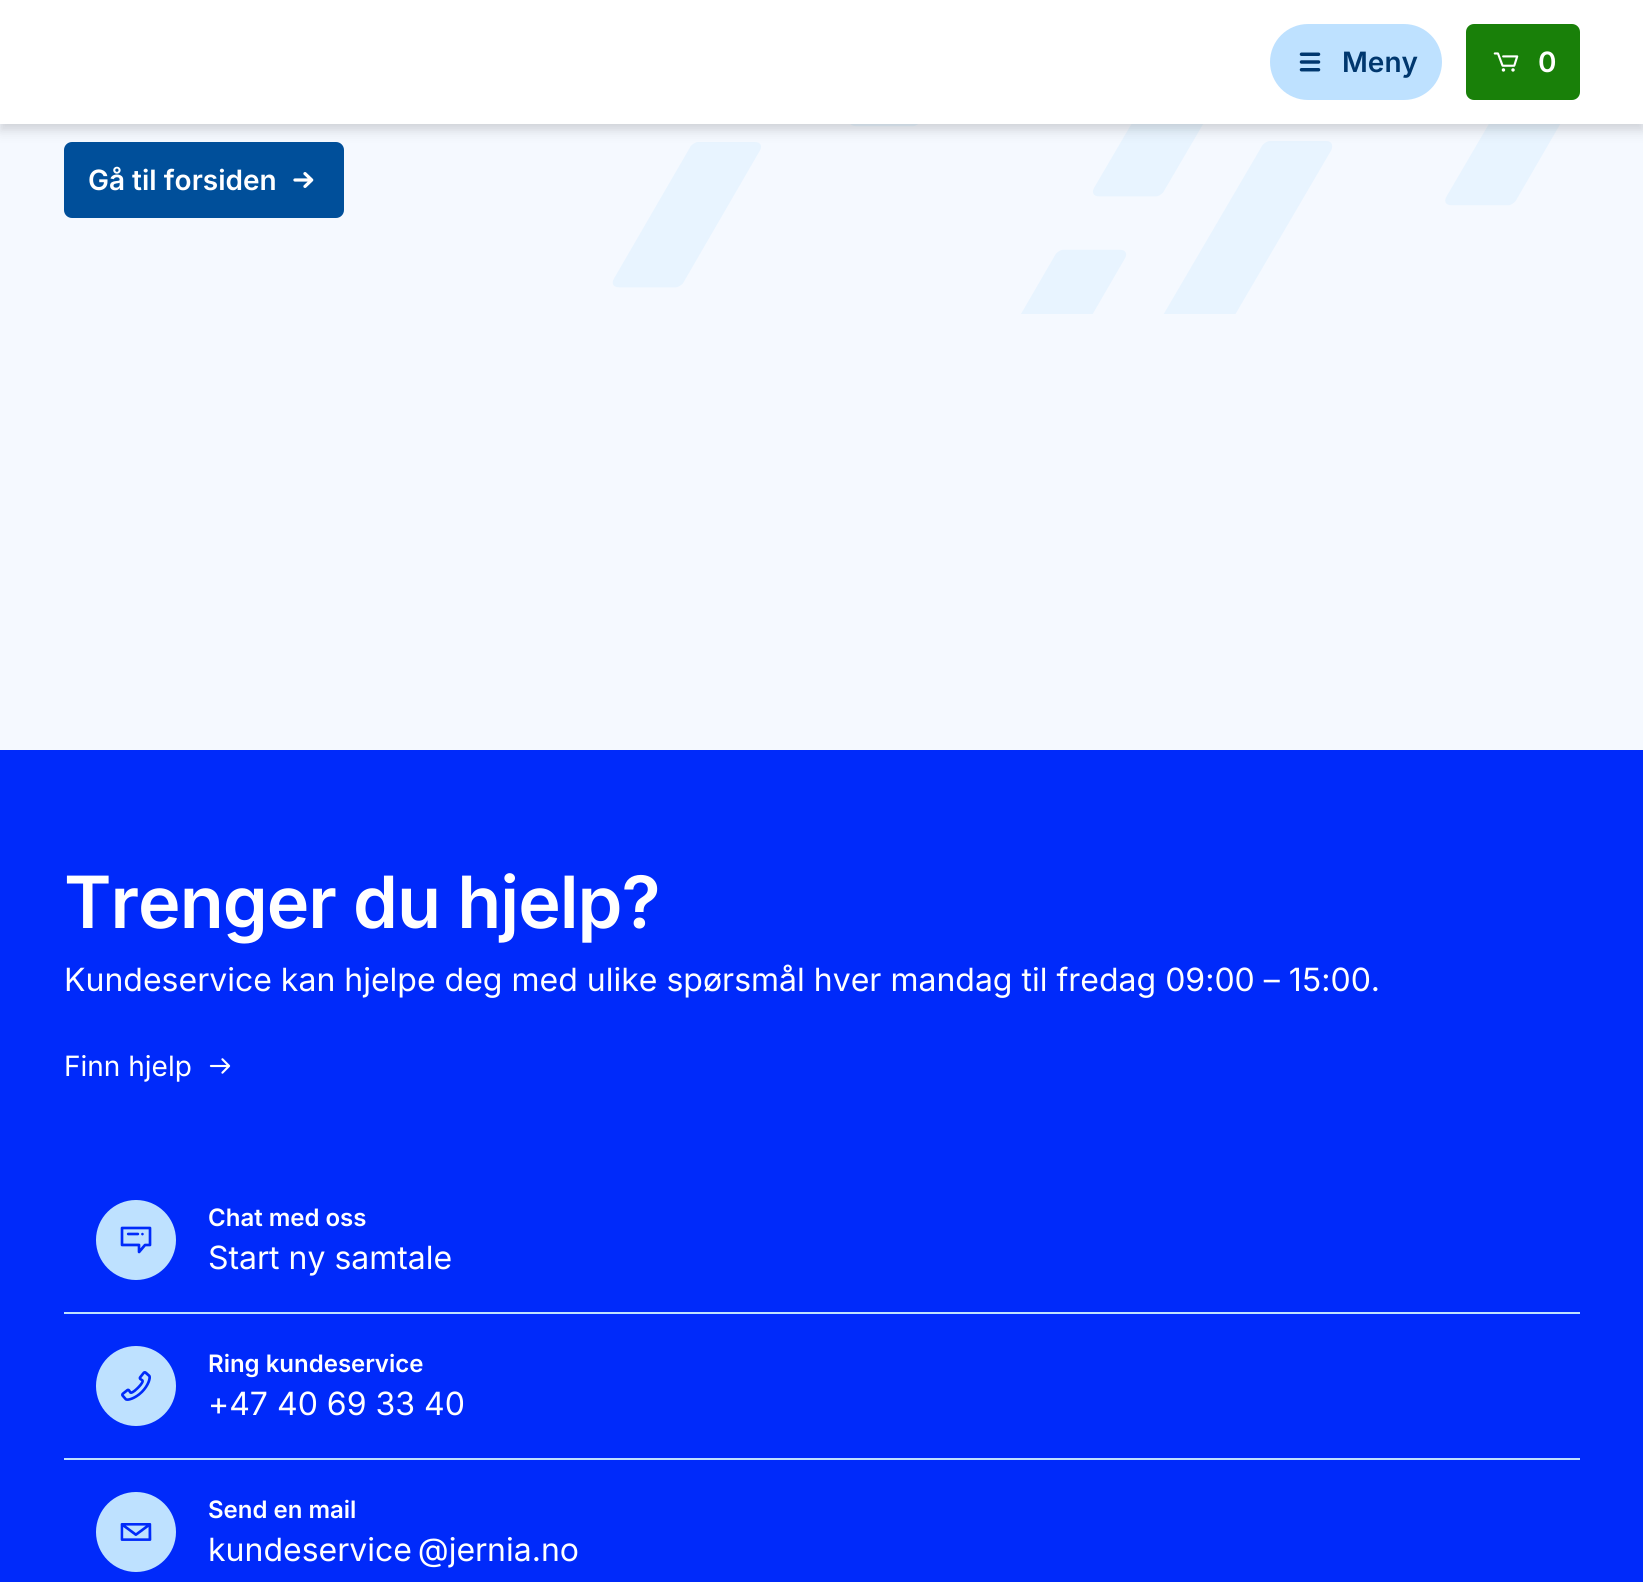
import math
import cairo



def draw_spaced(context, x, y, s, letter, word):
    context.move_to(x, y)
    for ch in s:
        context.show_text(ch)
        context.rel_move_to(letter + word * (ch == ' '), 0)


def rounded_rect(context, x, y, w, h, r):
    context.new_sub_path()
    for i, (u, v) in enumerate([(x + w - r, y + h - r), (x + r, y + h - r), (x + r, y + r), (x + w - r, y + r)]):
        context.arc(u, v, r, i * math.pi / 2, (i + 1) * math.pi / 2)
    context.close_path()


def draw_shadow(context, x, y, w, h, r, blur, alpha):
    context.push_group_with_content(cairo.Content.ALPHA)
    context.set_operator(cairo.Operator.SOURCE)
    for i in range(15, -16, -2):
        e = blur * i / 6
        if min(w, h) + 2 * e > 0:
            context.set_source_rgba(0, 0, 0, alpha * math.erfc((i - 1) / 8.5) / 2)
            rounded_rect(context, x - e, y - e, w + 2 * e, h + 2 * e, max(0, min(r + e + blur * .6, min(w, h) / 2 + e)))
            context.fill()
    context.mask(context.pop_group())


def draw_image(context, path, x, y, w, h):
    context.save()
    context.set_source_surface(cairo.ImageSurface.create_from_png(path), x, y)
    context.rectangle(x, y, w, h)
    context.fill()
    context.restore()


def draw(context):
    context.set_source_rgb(245 / 255, 249 / 255, 1)
    context.paint()
    context.set_source_rgb(0, 79 / 255, 154 / 255)
    rounded_rect(context, 64, 142, 280, 76, 8)
    context.fill()
    draw_image(context, "images/4.png", 612, 124, 949, 190)
    context.set_source_rgb(0, 0, 0)
    draw_shadow(context, 0, 8, 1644, 124, 0, 6, 0.1)
    draw_shadow(context, 0, 4, 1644, 124, 0, 4, 0.06)
    context.set_source_rgb(1, 1, 1)
    context.rectangle(0, 0, 1643, 124)
    context.fill()
    context.set_source_rgb(190 / 255, 225 / 255, 1)
    rounded_rect(context, 1270, 24, 172, 76, 38)
    context.fill()
    draw_image(context, "images/1.png", 1299, 52, 22, 20)
    context.set_source_rgb(25 / 255, 128 / 255, 9 / 255)
    rounded_rect(context, 1466, 24, 114, 76, 8)
    context.fill()
    draw_image(context, "images/2.png", 1493, 52, 26, 20)
    draw_image(context, "images/3.png", 293, 172, 21, 16)
    context.set_source_rgb(0, 42 / 255, 250 / 255)
    context.rectangle(0, 750, 1643, 832)
    context.fill()
    draw_image(context, "images/5.png", 209, 1058, 22, 16)
    context.set_source_rgb(190 / 255, 225 / 255, 1)
    context.rectangle(64, 1312, 1516, 2)
    context.fill()
    context.arc(136, 1240, 40, 0, 2 * math.pi)
    context.fill()
    draw_image(context, "images/6.png", 120, 1226, 32, 28)
    context.rectangle(64, 1458, 1516, 2)
    context.fill()
    context.arc(136, 1386, 40, 0, 2 * math.pi)
    context.fill()
    draw_image(context, "images/7.png", 121, 1371, 30, 30)
    context.arc(136, 1532, 40, 0, 2 * math.pi)
    context.fill()
    draw_image(context, "images/8.png", 120, 1523, 32, 18)
    context.select_font_face("Inter SemiBold")
    context.set_font_size(28)
    context.set_source_rgb(0, 55 / 255, 110 / 255)
    context.move_to(1342, 72)
    context.show_text("Meny")
    context.set_source_rgb(1, 1, 1)
    context.move_to(1538, 72)
    context.show_text("0")
    context.move_to(88, 190)
    context.show_text("Gå til forsiden")
    context.set_font_size(72)
    draw_spaced(context, 64, 928, "Trenger du hjelp?", -1, 0)
    context.select_font_face("Inter")
    context.set_font_size(32)
    context.move_to(64, 991)
    context.show_text("Kundeservice kan hjelpe deg med ulike spørsmål hver mandag til fredag 09:00 – 15:00.")
    context.set_font_size(28)
    context.move_to(64, 1076)
    context.show_text("Finn hjelp")
    context.select_font_face("Inter SemiBold")
    context.set_font_size(24)
    context.move_to(208, 1226)
    context.show_text("Chat med oss")
    context.select_font_face("Inter")
    context.set_font_size(32)
    context.move_to(208, 1269)
    context.show_text("Start ny samtale")
    context.select_font_face("Inter SemiBold")
    context.set_font_size(24)
    context.move_to(208, 1372)
    context.show_text("Ring kundeservice")
    context.select_font_face("Inter")
    context.set_font_size(32)
    context.move_to(208, 1415)
    context.show_text("+47 40 69 33 40")
    context.select_font_face("Inter SemiBold")
    context.set_font_size(24)
    context.move_to(208, 1518)
    context.show_text("Send en mail")
    context.select_font_face("Inter")
    context.set_font_size(32)
    context.move_to(208, 1561)
    context.show_text("kundeservice @jernia.no")


surface = cairo.ImageSurface(cairo.Format.RGB24, 1643, 1582)
context = cairo.Context(surface)
options = cairo.FontOptions()
options.set_hint_metrics(cairo.HintMetrics.OFF)
options.set_hint_style(cairo.HintStyle.NONE)
context.set_font_options(options)
context.set_miter_limit(4)
draw(context)
surface.write_to_png("out.png")
